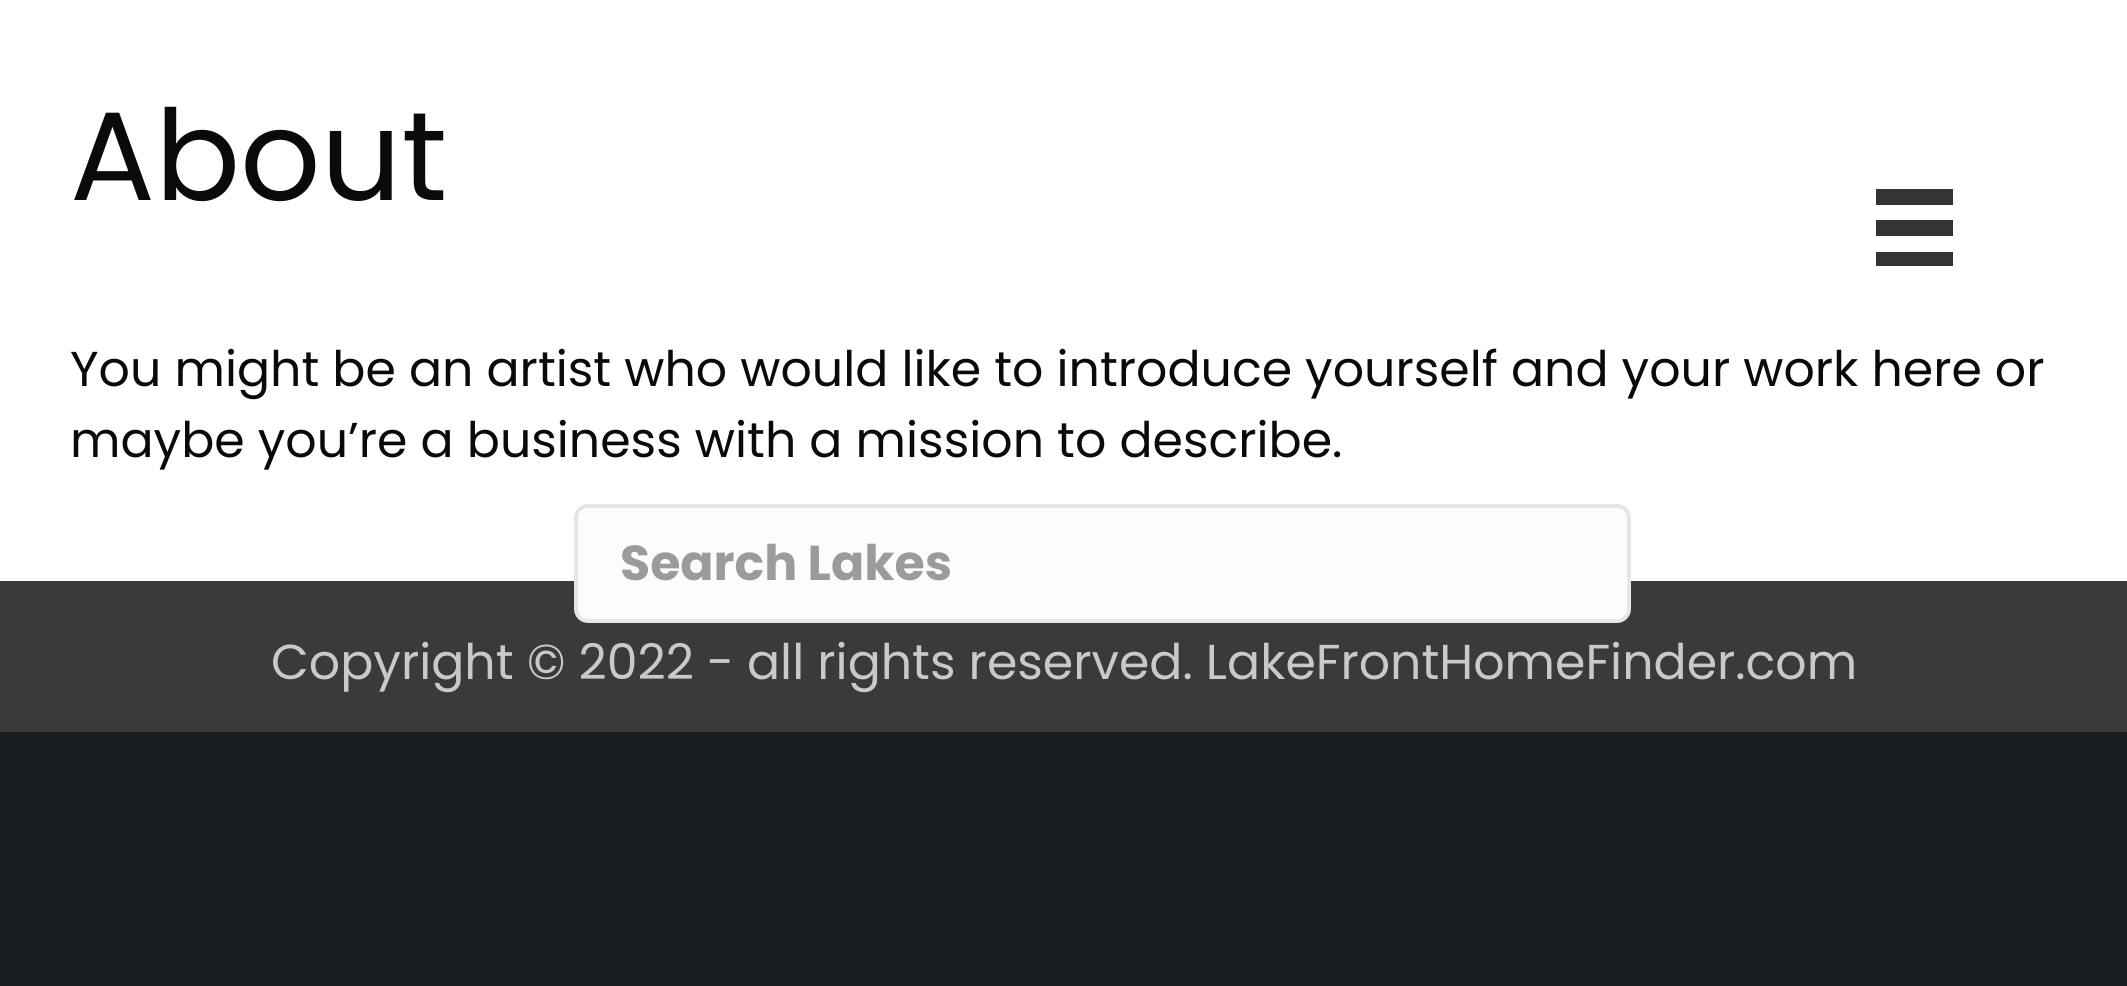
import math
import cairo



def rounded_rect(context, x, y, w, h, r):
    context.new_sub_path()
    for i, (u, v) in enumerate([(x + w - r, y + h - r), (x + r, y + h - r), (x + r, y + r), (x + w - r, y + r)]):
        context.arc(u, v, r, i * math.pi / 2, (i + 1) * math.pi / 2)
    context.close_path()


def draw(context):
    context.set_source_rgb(25 / 255, 29 / 255, 33 / 255)
    context.paint()
    context.set_source_rgb(1, 1, 1)
    context.rectangle(0, 0, 2127, 581)
    context.fill()
    context.set_source_rgb(51 / 255, 51 / 255, 51 / 255)
    context.rectangle(1876, 189, 77, 16)
    context.fill()
    context.rectangle(1876, 220, 77, 16)
    context.fill()
    context.rectangle(1876, 252, 77, 14)
    context.fill()
    context.set_source_rgb(58 / 255, 58 / 255, 58 / 255)
    context.rectangle(0, 581, 2127, 151)
    context.fill()
    context.set_source_rgb(252 / 255, 252 / 255, 252 / 255)
    rounded_rect(context, 576, 506, 1053, 115, 12)
    context.fill_preserve()
    context.set_source_rgb(230 / 255, 230 / 255, 230 / 255)
    context.set_line_width(4)
    context.stroke()
    context.select_font_face("Poppins")
    context.set_font_size(126)
    context.set_source_rgb(10 / 255, 10 / 255, 10 / 255)
    context.move_to(70, 200)
    context.show_text("About")
    context.set_font_size(49)
    context.move_to(70, 386)
    context.show_text("You might be an artist who would like to introduce yourself and your work here or")
    context.move_to(70, 457)
    context.show_text("maybe you’re a business with a mission to describe.")
    context.select_font_face("Poppins", cairo.FontSlant.NORMAL, cairo.FontWeight.BOLD)
    context.set_source_rgb(155 / 255, 155 / 255, 155 / 255)
    context.move_to(620, 580)
    context.show_text("Search Lakes")
    context.select_font_face("Poppins")
    context.set_source_rgb(201 / 255, 201 / 255, 201 / 255)
    context.move_to(271, 679)
    context.show_text("Copyright © 2022 - all rights reserved. LakeFrontHomeFinder.com")


surface = cairo.ImageSurface(cairo.Format.RGB24, 2127, 986)
context = cairo.Context(surface)
options = cairo.FontOptions()
options.set_hint_metrics(cairo.HintMetrics.OFF)
options.set_hint_style(cairo.HintStyle.NONE)
context.set_font_options(options)
context.set_miter_limit(4)
draw(context)
surface.write_to_png("out.png")
